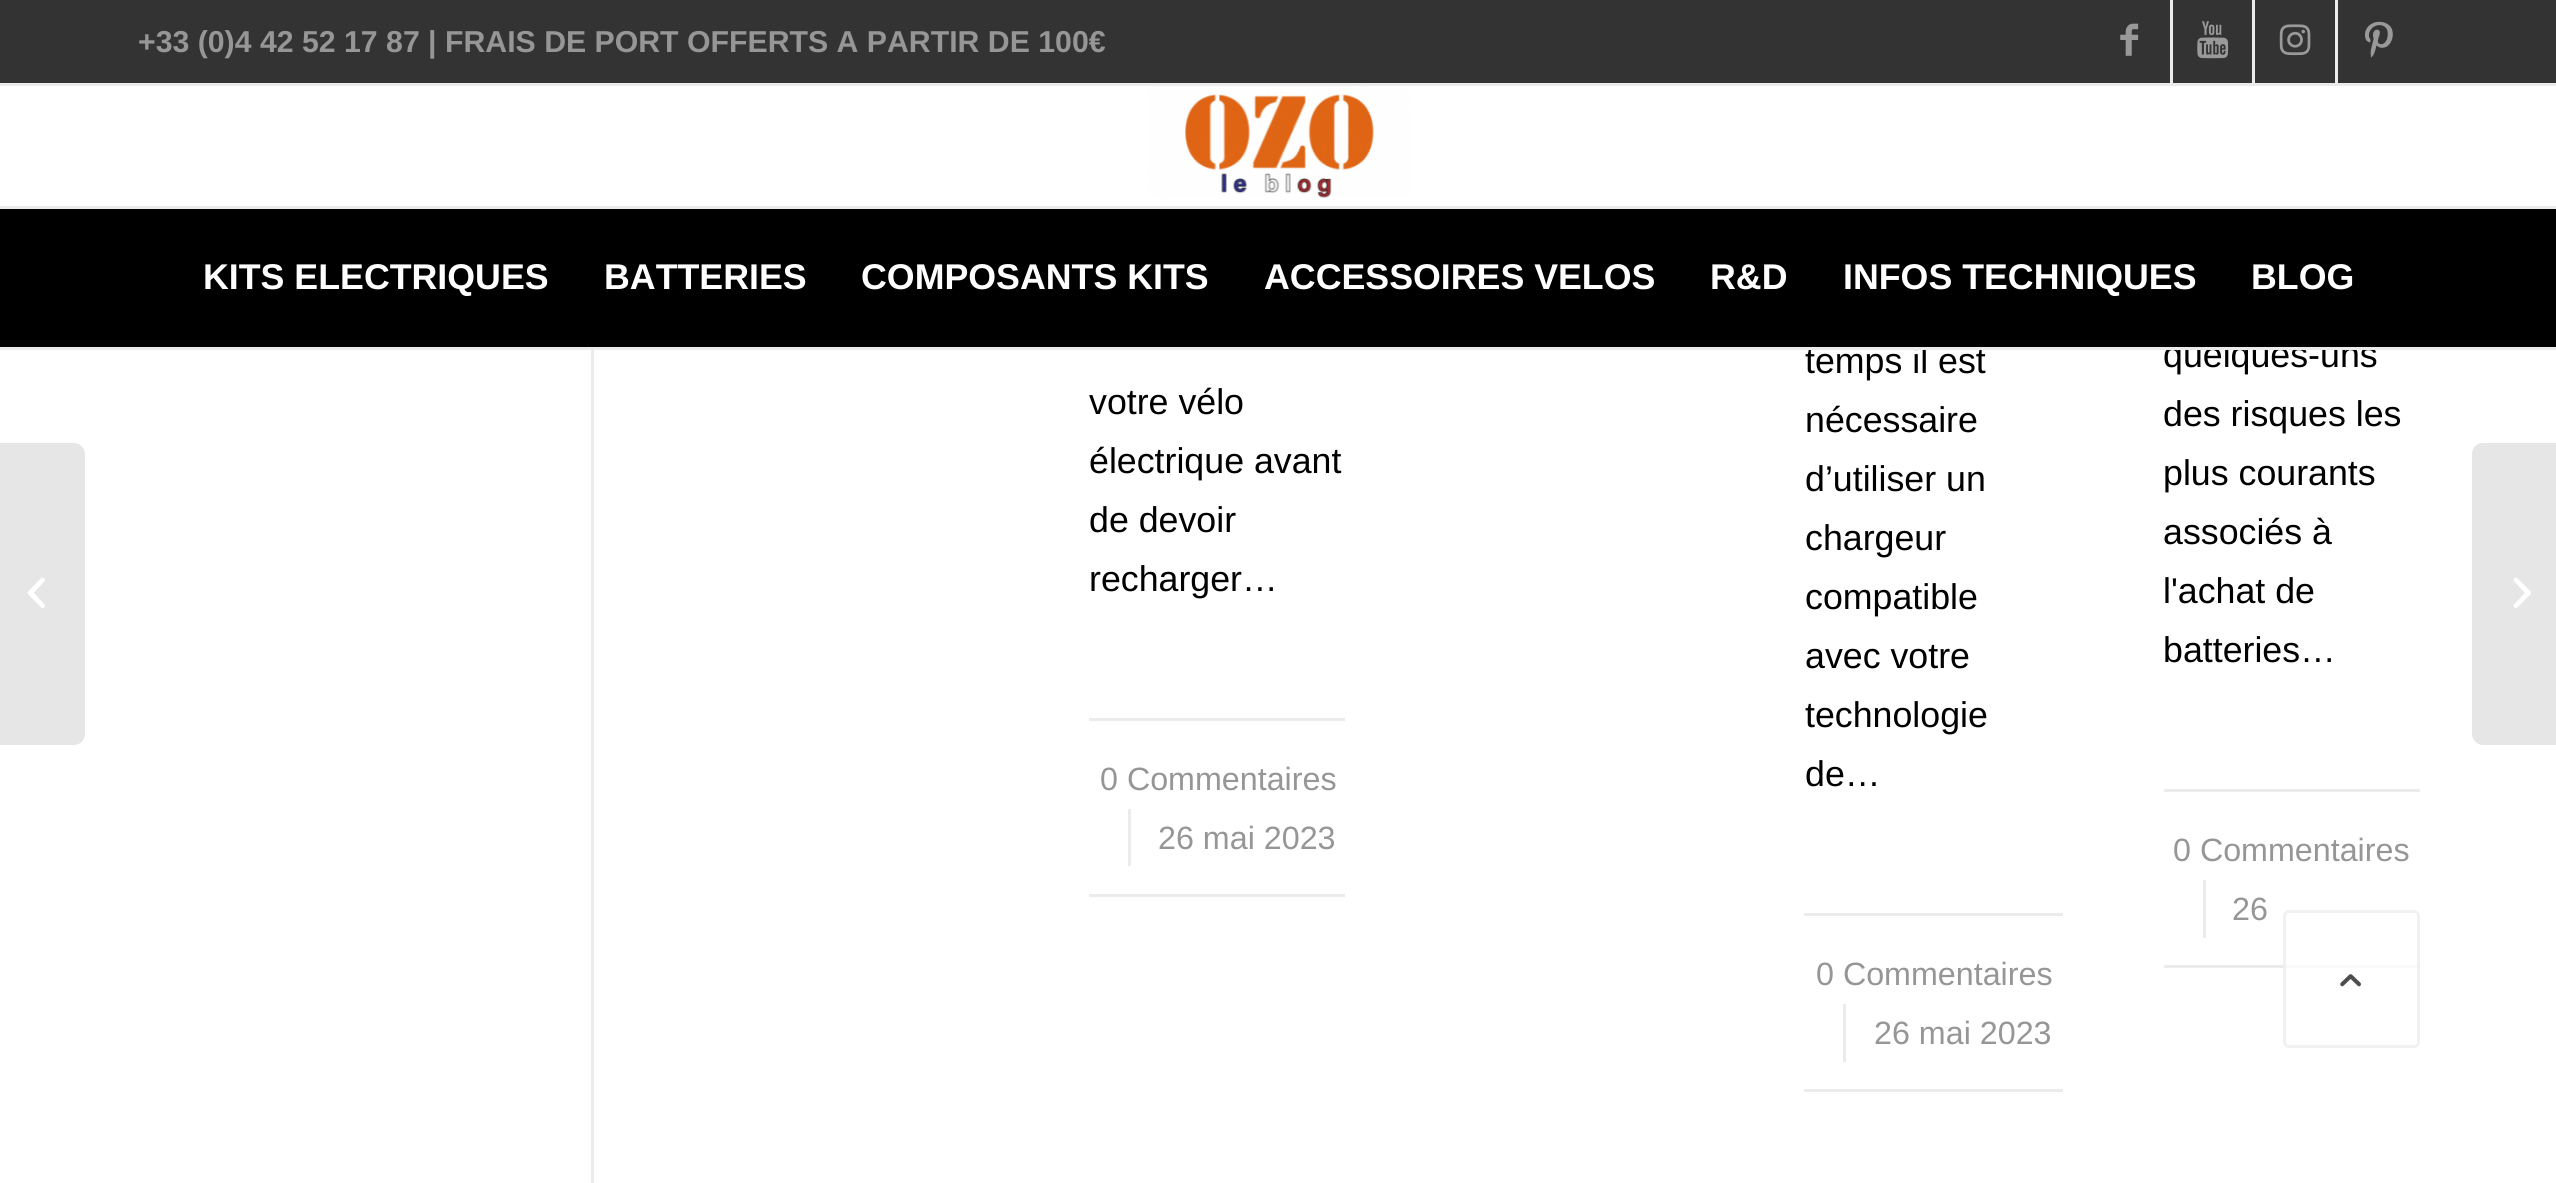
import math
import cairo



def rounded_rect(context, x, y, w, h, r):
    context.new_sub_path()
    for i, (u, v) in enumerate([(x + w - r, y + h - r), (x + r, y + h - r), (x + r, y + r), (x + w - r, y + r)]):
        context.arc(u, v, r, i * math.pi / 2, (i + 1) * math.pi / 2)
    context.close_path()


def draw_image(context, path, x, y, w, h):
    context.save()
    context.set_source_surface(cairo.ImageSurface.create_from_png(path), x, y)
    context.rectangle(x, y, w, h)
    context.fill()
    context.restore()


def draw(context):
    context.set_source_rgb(1, 1, 1)
    context.paint()
    context.set_source_rgb(51 / 255, 51 / 255, 51 / 255)
    context.rectangle(0, 0, 2556, 83)
    context.fill()
    context.set_source_rgb(235 / 255, 235 / 255, 235 / 255)
    context.rectangle(0, 83, 2556, 3)
    context.fill()
    context.rectangle(2170, 0, 3, 83)
    context.fill()
    draw_image(context, "images/1.png", 2120, 23, 19, 33)
    context.rectangle(2252, 0, 3, 83)
    context.fill()
    draw_image(context, "images/2.png", 2197, 21, 32, 38)
    context.rectangle(2335, 0, 3, 83)
    context.fill()
    draw_image(context, "images/3.png", 2279, 24, 32, 32)
    draw_image(context, "images/4.png", 2365, 21, 28, 37)
    draw_image(context, "images/5.png", 1147, 86, 264, 112)
    context.set_source_rgb(0, 0, 0)
    context.rectangle(0, 209, 2556, 138)
    context.fill()
    context.set_source_rgb(235 / 255, 235 / 255, 235 / 255)
    context.rectangle(0, 206, 2556, 3)
    context.fill()
    context.set_source_rgb(230 / 255, 230 / 255, 230 / 255)
    context.new_path()
    context.move_to(0, 443)
    context.line_to(74, 443)
    context.curve_to(80, 443, 85, 448, 85, 454)
    context.line_to(85, 734)
    context.curve_to(85, 740, 80, 745, 74, 745)
    context.line_to(0, 745)
    context.close_path()
    context.fill()
    draw_image(context, "images/6.png", 27, 577, 18, 31)
    context.set_source_rgb(235 / 255, 235 / 255, 235 / 255)
    context.rectangle(591, 350, 3, 833)
    context.fill()
    context.rectangle(1089, 718, 256, 3)
    context.fill()
    context.rectangle(1089, 894, 256, 3)
    context.fill()
    context.rectangle(1128, 809, 3, 57)
    context.fill()
    context.rectangle(1804, 913, 259, 3)
    context.fill()
    context.rectangle(1804, 1089, 259, 3)
    context.fill()
    context.rectangle(1843, 1004, 3, 58)
    context.fill()
    context.rectangle(2164, 789, 256, 3)
    context.fill()
    context.rectangle(2164, 965, 256, 3)
    context.fill()
    context.rectangle(2203, 880, 3, 58)
    context.fill()
    context.set_source_rgb(230 / 255, 230 / 255, 230 / 255)
    context.new_path()
    context.move_to(2483, 443)
    context.line_to(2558, 443)
    context.line_to(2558, 745)
    context.line_to(2483, 745)
    context.curve_to(2477, 745, 2472, 740, 2472, 734)
    context.line_to(2472, 454)
    context.curve_to(2472, 448, 2477, 443, 2483, 443)
    context.close_path()
    context.fill()
    draw_image(context, "images/7.png", 2513, 577, 18, 31)
    context.set_source_rgba(1, 1, 1, 0.7)
    rounded_rect(context, 2283, 910, 137, 138, 6)
    context.fill()
    rounded_rect(context, 2284.5, 911.5, 134, 135, 4.5)
    context.set_source_rgba(235 / 255, 235 / 255, 235 / 255, 0.7)
    context.set_line_width(3)
    context.stroke()
    draw_image(context, "images/8.png", 2340, 974, 21, 13)
    context.select_font_face("Liberation Sans", cairo.FontSlant.NORMAL, cairo.FontWeight.BOLD)
    context.set_font_size(30.25)
    context.set_source_rgb(150 / 255, 150 / 255, 150 / 255)
    context.move_to(138, 52)
    context.show_text("+33 (0)4 42 52 17 87 | FRAIS DE PORT OFFERTS A PARTIR DE 100€")
    context.set_font_size(35.75)
    context.set_source_rgb(1, 1, 1)
    context.move_to(203, 289)
    context.show_text("KITS ELECTRIQUES")
    context.move_to(604, 289)
    context.show_text("BATTERIES")
    context.move_to(861, 289)
    context.show_text("COMPOSANTS KITS")
    context.move_to(1264, 289)
    context.show_text("ACCESSOIRES VELOS")
    context.move_to(1710, 289)
    context.show_text("R&D")
    context.move_to(1843, 289)
    context.show_text("INFOS TECHNIQUES")
    context.move_to(2251, 289)
    context.show_text("BLOG")
    context.select_font_face("Liberation Sans")
    context.set_source_rgb(0, 0, 0)
    context.move_to(1089, 414)
    context.show_text("votre vélo")
    context.move_to(1089, 473)
    context.show_text("électrique avant")
    context.move_to(1089, 532)
    context.show_text("de devoir")
    context.move_to(1089, 591)
    context.show_text("recharger…")
    context.set_font_size(32.25)
    context.set_source_rgb(150 / 255, 150 / 255, 150 / 255)
    context.move_to(1100, 790)
    context.show_text("0 Commentaires")
    context.move_to(1158, 849)
    context.show_text("26 mai 2023")
    context.set_font_size(35.75)
    context.set_source_rgb(0, 0, 0)
    context.move_to(1805, 373)
    context.show_text("temps il est")
    context.move_to(1805, 432)
    context.show_text("nécessaire")
    context.move_to(1805, 491)
    context.show_text("d’utiliser un")
    context.move_to(1805, 550)
    context.show_text("chargeur")
    context.move_to(1805, 609)
    context.show_text("compatible")
    context.move_to(1805, 668)
    context.show_text("avec votre")
    context.move_to(1805, 727)
    context.show_text("technologie")
    context.move_to(1805, 786)
    context.show_text("de…")
    context.set_font_size(32.25)
    context.set_source_rgb(150 / 255, 150 / 255, 150 / 255)
    context.move_to(1816, 985)
    context.show_text("0 Commentaires")
    context.move_to(1874, 1044)
    context.show_text("26 mai 2023")
    context.set_font_size(35.75)
    context.set_source_rgb(0, 0, 0)
    context.move_to(2163, 367)
    context.show_text("quelques-uns")
    context.set_source_rgb(235 / 255, 235 / 255, 235 / 255)
    context.rectangle(0, 347, 2556, 3)
    context.fill()
    context.set_source_rgb(0, 0, 0)
    context.move_to(2163, 426)
    context.show_text("des risques les")
    context.move_to(2163, 485)
    context.show_text("plus courants")
    context.move_to(2163, 544)
    context.show_text("associés à")
    context.move_to(2163, 603)
    context.show_text("l'achat de")
    context.move_to(2163, 662)
    context.show_text("batteries…")
    context.set_font_size(32.25)
    context.set_source_rgb(150 / 255, 150 / 255, 150 / 255)
    context.move_to(2173, 861)
    context.show_text("0 Commentaires")
    context.move_to(2232, 920)
    context.show_text("26")


surface = cairo.ImageSurface(cairo.Format.RGB24, 2556, 1183)
context = cairo.Context(surface)
options = cairo.FontOptions()
options.set_hint_metrics(cairo.HintMetrics.OFF)
options.set_hint_style(cairo.HintStyle.NONE)
context.set_font_options(options)
context.set_miter_limit(4)
draw(context)
surface.write_to_png("out.png")
